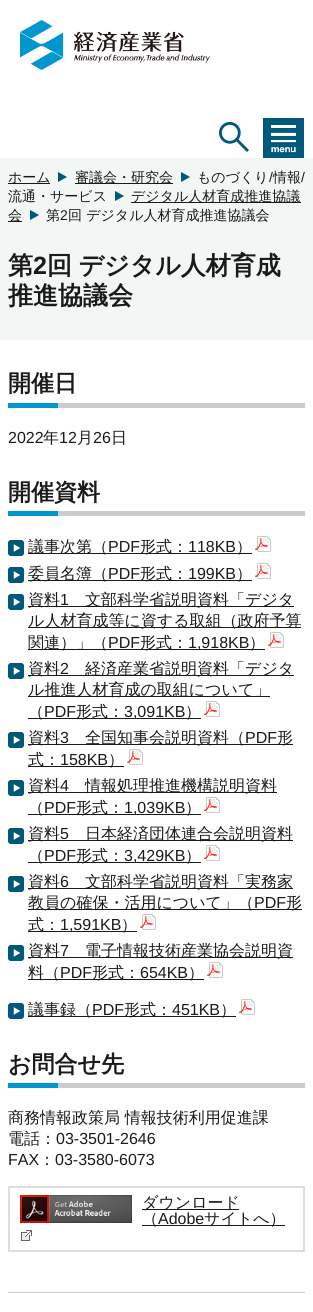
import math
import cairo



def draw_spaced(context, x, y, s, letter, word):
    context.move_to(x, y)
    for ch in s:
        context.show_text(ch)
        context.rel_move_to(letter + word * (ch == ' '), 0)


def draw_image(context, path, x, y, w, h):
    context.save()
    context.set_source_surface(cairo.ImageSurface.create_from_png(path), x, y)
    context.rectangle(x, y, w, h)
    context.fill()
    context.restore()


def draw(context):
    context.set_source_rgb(1, 1, 1)
    context.paint()
    draw_image(context, "images/1.png", 20, 20, 190, 50)
    draw_image(context, "images/2.png", 219, 122, 30, 30)
    draw_image(context, "images/3.png", 263, 118, 41, 40)
    context.set_source_rgb(242 / 255, 246 / 255, 245 / 255)
    context.rectangle(0, 158, 313, 182)
    context.fill()
    context.set_source_rgb(26 / 255, 26 / 255, 26 / 255)
    context.rectangle(8, 183, 42, 1)
    context.fill()
    draw_image(context, "images/4.png", 58, 172, 9, 10)
    context.rectangle(75, 183, 98, 1)
    context.fill()
    draw_image(context, "images/4.png", 181, 172, 9, 10)
    draw_image(context, "images/4.png", 115, 191, 9, 10)
    context.rectangle(131, 202, 170, 1)
    context.fill()
    context.rectangle(8, 221, 14, 1)
    context.fill()
    draw_image(context, "images/4.png", 30, 210, 9, 10)
    context.set_source_rgb(204 / 255, 204 / 255, 204 / 255)
    context.rectangle(58, 403, 247, 5)
    context.fill()
    context.set_source_rgb(0, 151 / 255, 208 / 255)
    context.rectangle(8, 403, 50, 5)
    context.fill()
    context.set_source_rgb(204 / 255, 204 / 255, 204 / 255)
    context.rectangle(58, 511, 247, 5)
    context.fill()
    context.set_source_rgb(0, 151 / 255, 208 / 255)
    context.rectangle(8, 511, 50, 5)
    context.fill()
    draw_image(context, "images/5.png", 8, 540, 16, 16)
    context.set_source_rgb(26 / 255, 26 / 255, 26 / 255)
    context.rectangle(28, 553, 224, 1)
    context.fill()
    draw_image(context, "images/6.png", 255, 536, 16, 16)
    draw_image(context, "images/5.png", 8, 567, 16, 16)
    context.rectangle(28, 580, 224, 1)
    context.fill()
    draw_image(context, "images/6.png", 255, 563, 16, 16)
    draw_image(context, "images/5.png", 8, 594, 16, 16)
    context.rectangle(28, 606, 266, 1)
    context.fill()
    context.rectangle(28, 627, 273, 1)
    context.fill()
    context.rectangle(28, 649, 237, 1)
    context.fill()
    draw_image(context, "images/6.png", 268, 632, 16, 16)
    draw_image(context, "images/5.png", 8, 663, 16, 16)
    context.rectangle(28, 675, 266, 1)
    context.fill()
    context.rectangle(28, 696, 242, 1)
    context.fill()
    context.rectangle(28, 718, 173, 1)
    context.fill()
    draw_image(context, "images/6.png", 204, 701, 16, 16)
    draw_image(context, "images/5.png", 8, 732, 16, 16)
    context.rectangle(28, 744, 265, 1)
    context.fill()
    context.rectangle(28, 766, 96, 1)
    context.fill()
    draw_image(context, "images/6.png", 127, 749, 16, 16)
    draw_image(context, "images/5.png", 8, 780, 16, 16)
    context.rectangle(28, 792, 249, 1)
    context.fill()
    context.rectangle(28, 814, 173, 1)
    context.fill()
    draw_image(context, "images/6.png", 204, 797, 16, 16)
    draw_image(context, "images/5.png", 8, 828, 16, 16)
    context.rectangle(28, 840, 265, 1)
    context.fill()
    context.rectangle(28, 862, 173, 1)
    context.fill()
    draw_image(context, "images/6.png", 204, 845, 16, 16)
    draw_image(context, "images/5.png", 8, 876, 16, 16)
    context.rectangle(28, 888, 265, 1)
    context.fill()
    context.rectangle(28, 909, 274, 1)
    context.fill()
    context.rectangle(28, 931, 109, 1)
    context.fill()
    draw_image(context, "images/6.png", 140, 914, 16, 16)
    draw_image(context, "images/5.png", 8, 945, 16, 16)
    context.rectangle(28, 957, 265, 1)
    context.fill()
    context.rectangle(28, 979, 176, 1)
    context.fill()
    draw_image(context, "images/6.png", 207, 962, 16, 16)
    draw_image(context, "images/5.png", 8, 1003, 16, 16)
    context.rectangle(28, 1016, 208, 1)
    context.fill()
    draw_image(context, "images/6.png", 239, 999, 16, 16)
    context.set_source_rgb(204 / 255, 204 / 255, 204 / 255)
    context.rectangle(58, 1083, 247, 5)
    context.fill()
    context.set_source_rgb(0, 151 / 255, 208 / 255)
    context.rectangle(8, 1083, 50, 5)
    context.fill()
    context.rectangle(9, 1187, 295, 64)
    context.set_source_rgb(221 / 255, 221 / 255, 221 / 255)
    context.stroke()
    draw_image(context, "images/7.png", 20, 1195, 112, 28)
    context.set_source_rgb(26 / 255, 26 / 255, 26 / 255)
    context.rectangle(142, 1209, 97, 1)
    context.fill()
    context.rectangle(142, 1225, 143, 1)
    context.fill()
    draw_image(context, "images/8.png", 21, 1230, 11, 11)
    context.set_source_rgb(204 / 255, 204 / 255, 204 / 255)
    context.rectangle(8, 1292, 297, 1)
    context.fill()
    context.select_font_face("WenQuanYi Zen Hei Medium")
    context.set_font_size(14)
    context.set_source_rgb(26 / 255, 26 / 255, 26 / 255)
    context.move_to(8, 182)
    context.show_text("ホーム")
    context.move_to(75, 182)
    context.show_text("審議会・研究会")
    context.move_to(197, 182)
    context.show_text("ものづくり")
    context.select_font_face("Liberation Sans")
    context.move_to(269, 182)
    context.show_text("/")
    context.select_font_face("WenQuanYi Zen Hei Medium")
    context.move_to(273, 182)
    context.show_text("情報")
    context.select_font_face("Liberation Sans")
    context.move_to(301, 182)
    context.show_text("/")
    context.select_font_face("WenQuanYi Zen Hei Medium")
    context.move_to(8, 201)
    context.show_text("流通・サービス")
    context.move_to(131, 201)
    context.show_text("デジタル人材育成推進協議")
    context.move_to(8, 220)
    context.show_text("会")
    context.move_to(46, 220)
    context.show_text("第")
    context.select_font_face("Liberation Sans")
    context.move_to(60, 220)
    context.show_text("2")
    context.select_font_face("WenQuanYi Zen Hei Medium")
    context.move_to(68, 220)
    context.show_text("回 デジタル人材育成推進協議会")
    context.select_font_face("WenQuanYi Zen Hei", cairo.FontSlant.NORMAL, cairo.FontWeight.BOLD)
    context.set_font_size(25)
    context.move_to(8, 274)
    context.show_text("第")
    context.select_font_face("Liberation Sans", cairo.FontSlant.NORMAL, cairo.FontWeight.BOLD)
    context.move_to(33, 274)
    context.show_text("2")
    context.select_font_face("WenQuanYi Zen Hei", cairo.FontSlant.NORMAL, cairo.FontWeight.BOLD)
    draw_spaced(context, 47, 274, "回 デジタル人材育成", 0, -1)
    context.move_to(8, 304)
    context.show_text("推進協議会")
    context.set_font_size(23)
    context.move_to(8, 391)
    context.show_text("開催日")
    context.select_font_face("Liberation Sans")
    context.set_font_size(16)
    context.move_to(8, 443)
    context.show_text("2022")
    context.select_font_face("WenQuanYi Zen Hei Medium")
    context.move_to(43, 443)
    context.show_text("年")
    context.select_font_face("Liberation Sans")
    context.move_to(59, 443)
    context.show_text("12")
    context.select_font_face("WenQuanYi Zen Hei Medium")
    context.move_to(77, 443)
    context.show_text("月")
    context.select_font_face("Liberation Sans")
    context.move_to(93, 443)
    context.show_text("26")
    context.select_font_face("WenQuanYi Zen Hei Medium")
    context.move_to(111, 443)
    context.show_text("日")
    context.select_font_face("WenQuanYi Zen Hei", cairo.FontSlant.NORMAL, cairo.FontWeight.BOLD)
    context.set_font_size(23)
    context.move_to(8, 500)
    context.show_text("開催資料")
    context.select_font_face("WenQuanYi Zen Hei Medium")
    context.set_font_size(16)
    context.move_to(28, 552)
    context.show_text("議事次第（")
    context.select_font_face("Liberation Sans")
    context.move_to(108, 552)
    context.show_text("PDF")
    context.select_font_face("WenQuanYi Zen Hei Medium")
    context.move_to(140, 552)
    context.show_text("形式：")
    context.select_font_face("Liberation Sans")
    context.move_to(188, 552)
    context.show_text("118KB")
    context.select_font_face("WenQuanYi Zen Hei Medium")
    context.move_to(236, 552)
    context.show_text("）")
    context.move_to(28, 579)
    context.show_text("委員名簿（")
    context.select_font_face("Liberation Sans")
    context.move_to(108, 579)
    context.show_text("PDF")
    context.select_font_face("WenQuanYi Zen Hei Medium")
    context.move_to(140, 579)
    context.show_text("形式：")
    context.select_font_face("Liberation Sans")
    context.move_to(188, 579)
    context.show_text("199KB")
    context.select_font_face("WenQuanYi Zen Hei Medium")
    context.move_to(236, 579)
    context.show_text("）")
    context.move_to(28, 605)
    context.show_text("資料")
    context.select_font_face("Liberation Sans")
    context.move_to(60, 605)
    context.show_text("1")
    context.select_font_face("WenQuanYi Zen Hei Medium")
    context.move_to(85, 605)
    context.show_text("文部科学省説明資料「デジタ")
    context.move_to(28, 626)
    context.show_text("ル人材育成等に資する取組（政府予算")
    context.move_to(28, 648)
    context.show_text("関連）」（")
    context.select_font_face("Liberation Sans")
    context.move_to(108, 648)
    context.show_text("PDF")
    context.select_font_face("WenQuanYi Zen Hei Medium")
    context.move_to(140, 648)
    context.show_text("形式：")
    context.select_font_face("Liberation Sans")
    context.move_to(188, 648)
    context.show_text("1,918KB")
    context.select_font_face("WenQuanYi Zen Hei Medium")
    context.move_to(249, 648)
    context.show_text("）")
    context.move_to(28, 674)
    context.show_text("資料")
    context.select_font_face("Liberation Sans")
    context.move_to(60, 674)
    context.show_text("2")
    context.select_font_face("WenQuanYi Zen Hei Medium")
    context.move_to(85, 674)
    context.show_text("経済産業省説明資料「デジタ")
    context.move_to(28, 695)
    context.show_text("ル推進人材育成の取組について」")
    context.move_to(28, 717)
    context.show_text("（")
    context.select_font_face("Liberation Sans")
    context.move_to(44, 717)
    context.show_text("PDF")
    context.select_font_face("WenQuanYi Zen Hei Medium")
    context.move_to(76, 717)
    context.show_text("形式：")
    context.select_font_face("Liberation Sans")
    context.move_to(124, 717)
    context.show_text("3,091KB")
    context.select_font_face("WenQuanYi Zen Hei Medium")
    context.move_to(185, 717)
    context.show_text("）")
    context.move_to(28, 743)
    context.show_text("資料")
    context.select_font_face("Liberation Sans")
    context.move_to(60, 743)
    context.show_text("3")
    context.select_font_face("WenQuanYi Zen Hei Medium")
    context.move_to(85, 743)
    context.show_text("全国知事会説明資料（")
    context.select_font_face("Liberation Sans")
    context.move_to(245, 743)
    context.show_text("PDF")
    context.select_font_face("WenQuanYi Zen Hei Medium")
    context.move_to(277, 743)
    context.show_text("形")
    context.move_to(28, 765)
    context.show_text("式：")
    context.select_font_face("Liberation Sans")
    context.move_to(60, 765)
    context.show_text("158KB")
    context.select_font_face("WenQuanYi Zen Hei Medium")
    context.move_to(108, 765)
    context.show_text("）")
    context.move_to(28, 791)
    context.show_text("資料")
    context.select_font_face("Liberation Sans")
    context.move_to(60, 791)
    context.show_text("4")
    context.select_font_face("WenQuanYi Zen Hei Medium")
    context.move_to(85, 791)
    context.show_text("情報処理推進機構説明資料")
    context.move_to(28, 813)
    context.show_text("（")
    context.select_font_face("Liberation Sans")
    context.move_to(44, 813)
    context.show_text("PDF")
    context.select_font_face("WenQuanYi Zen Hei Medium")
    context.move_to(76, 813)
    context.show_text("形式：")
    context.select_font_face("Liberation Sans")
    context.move_to(124, 813)
    context.show_text("1,039KB")
    context.select_font_face("WenQuanYi Zen Hei Medium")
    context.move_to(185, 813)
    context.show_text("）")
    context.move_to(28, 839)
    context.show_text("資料")
    context.select_font_face("Liberation Sans")
    context.move_to(60, 839)
    context.show_text("5")
    context.select_font_face("WenQuanYi Zen Hei Medium")
    context.move_to(85, 839)
    context.show_text("日本経済団体連合会説明資料")
    context.move_to(28, 861)
    context.show_text("（")
    context.select_font_face("Liberation Sans")
    context.move_to(44, 861)
    context.show_text("PDF")
    context.select_font_face("WenQuanYi Zen Hei Medium")
    context.move_to(76, 861)
    context.show_text("形式：")
    context.select_font_face("Liberation Sans")
    context.move_to(124, 861)
    context.show_text("3,429KB")
    context.select_font_face("WenQuanYi Zen Hei Medium")
    context.move_to(185, 861)
    context.show_text("）")
    context.move_to(28, 887)
    context.show_text("資料")
    context.select_font_face("Liberation Sans")
    context.move_to(60, 887)
    context.show_text("6")
    context.select_font_face("WenQuanYi Zen Hei Medium")
    context.move_to(85, 887)
    context.show_text("文部科学省説明資料「実務家")
    context.move_to(28, 908)
    context.show_text("教員の確保・活用について」（")
    context.select_font_face("Liberation Sans")
    context.move_to(254, 908)
    context.show_text("PDF")
    context.select_font_face("WenQuanYi Zen Hei Medium")
    context.move_to(286, 908)
    context.show_text("形")
    context.move_to(28, 930)
    context.show_text("式：")
    context.select_font_face("Liberation Sans")
    context.move_to(60, 930)
    context.show_text("1,591KB")
    context.select_font_face("WenQuanYi Zen Hei Medium")
    context.move_to(121, 930)
    context.show_text("）")
    context.move_to(28, 956)
    context.show_text("資料")
    context.select_font_face("Liberation Sans")
    context.move_to(60, 956)
    context.show_text("7")
    context.select_font_face("WenQuanYi Zen Hei Medium")
    context.move_to(85, 956)
    context.show_text("電子情報技術産業協会説明資")
    context.move_to(28, 978)
    context.show_text("料（")
    context.select_font_face("Liberation Sans")
    context.move_to(60, 978)
    context.show_text("PDF")
    context.select_font_face("WenQuanYi Zen Hei Medium")
    context.move_to(92, 978)
    context.show_text("形式：")
    context.select_font_face("Liberation Sans")
    context.move_to(140, 978)
    context.show_text("654KB")
    context.select_font_face("WenQuanYi Zen Hei Medium")
    context.move_to(188, 978)
    context.show_text("）")
    context.move_to(28, 1015)
    context.show_text("議事録（")
    context.select_font_face("Liberation Sans")
    context.move_to(92, 1015)
    context.show_text("PDF")
    context.select_font_face("WenQuanYi Zen Hei Medium")
    context.move_to(124, 1015)
    context.show_text("形式：")
    context.select_font_face("Liberation Sans")
    context.move_to(172, 1015)
    context.show_text("451KB")
    context.select_font_face("WenQuanYi Zen Hei Medium")
    context.move_to(220, 1015)
    context.show_text("）")
    context.select_font_face("WenQuanYi Zen Hei", cairo.FontSlant.NORMAL, cairo.FontWeight.BOLD)
    context.set_font_size(23)
    context.move_to(8, 1072)
    context.show_text("お問合せ先")
    context.select_font_face("WenQuanYi Zen Hei Medium")
    context.set_font_size(16)
    context.move_to(8, 1123)
    context.show_text("商務情報政策局 情報技術利用促進課")
    context.move_to(8, 1144)
    context.show_text("電話：")
    context.select_font_face("Liberation Sans")
    context.move_to(56, 1144)
    context.show_text("03-3501-2646")
    context.move_to(8, 1165)
    context.show_text("FAX")
    context.select_font_face("WenQuanYi Zen Hei Medium")
    context.move_to(39, 1165)
    context.show_text("：")
    context.select_font_face("Liberation Sans")
    context.move_to(55, 1165)
    context.show_text("03-3580-6073")
    context.select_font_face("WenQuanYi Zen Hei Medium")
    context.move_to(142, 1208)
    context.show_text("ダウンロード")
    context.move_to(142, 1224)
    context.show_text("（")
    context.select_font_face("Liberation Sans")
    context.move_to(158, 1224)
    context.show_text("Adobe")
    context.select_font_face("WenQuanYi Zen Hei Medium")
    context.move_to(204, 1224)
    context.show_text("サイトへ）")


surface = cairo.ImageSurface(cairo.Format.RGB24, 313, 1312)
context = cairo.Context(surface)
options = cairo.FontOptions()
options.set_hint_metrics(cairo.HintMetrics.OFF)
options.set_hint_style(cairo.HintStyle.NONE)
context.set_font_options(options)
context.set_miter_limit(4)
draw(context)
surface.write_to_png("out.png")
